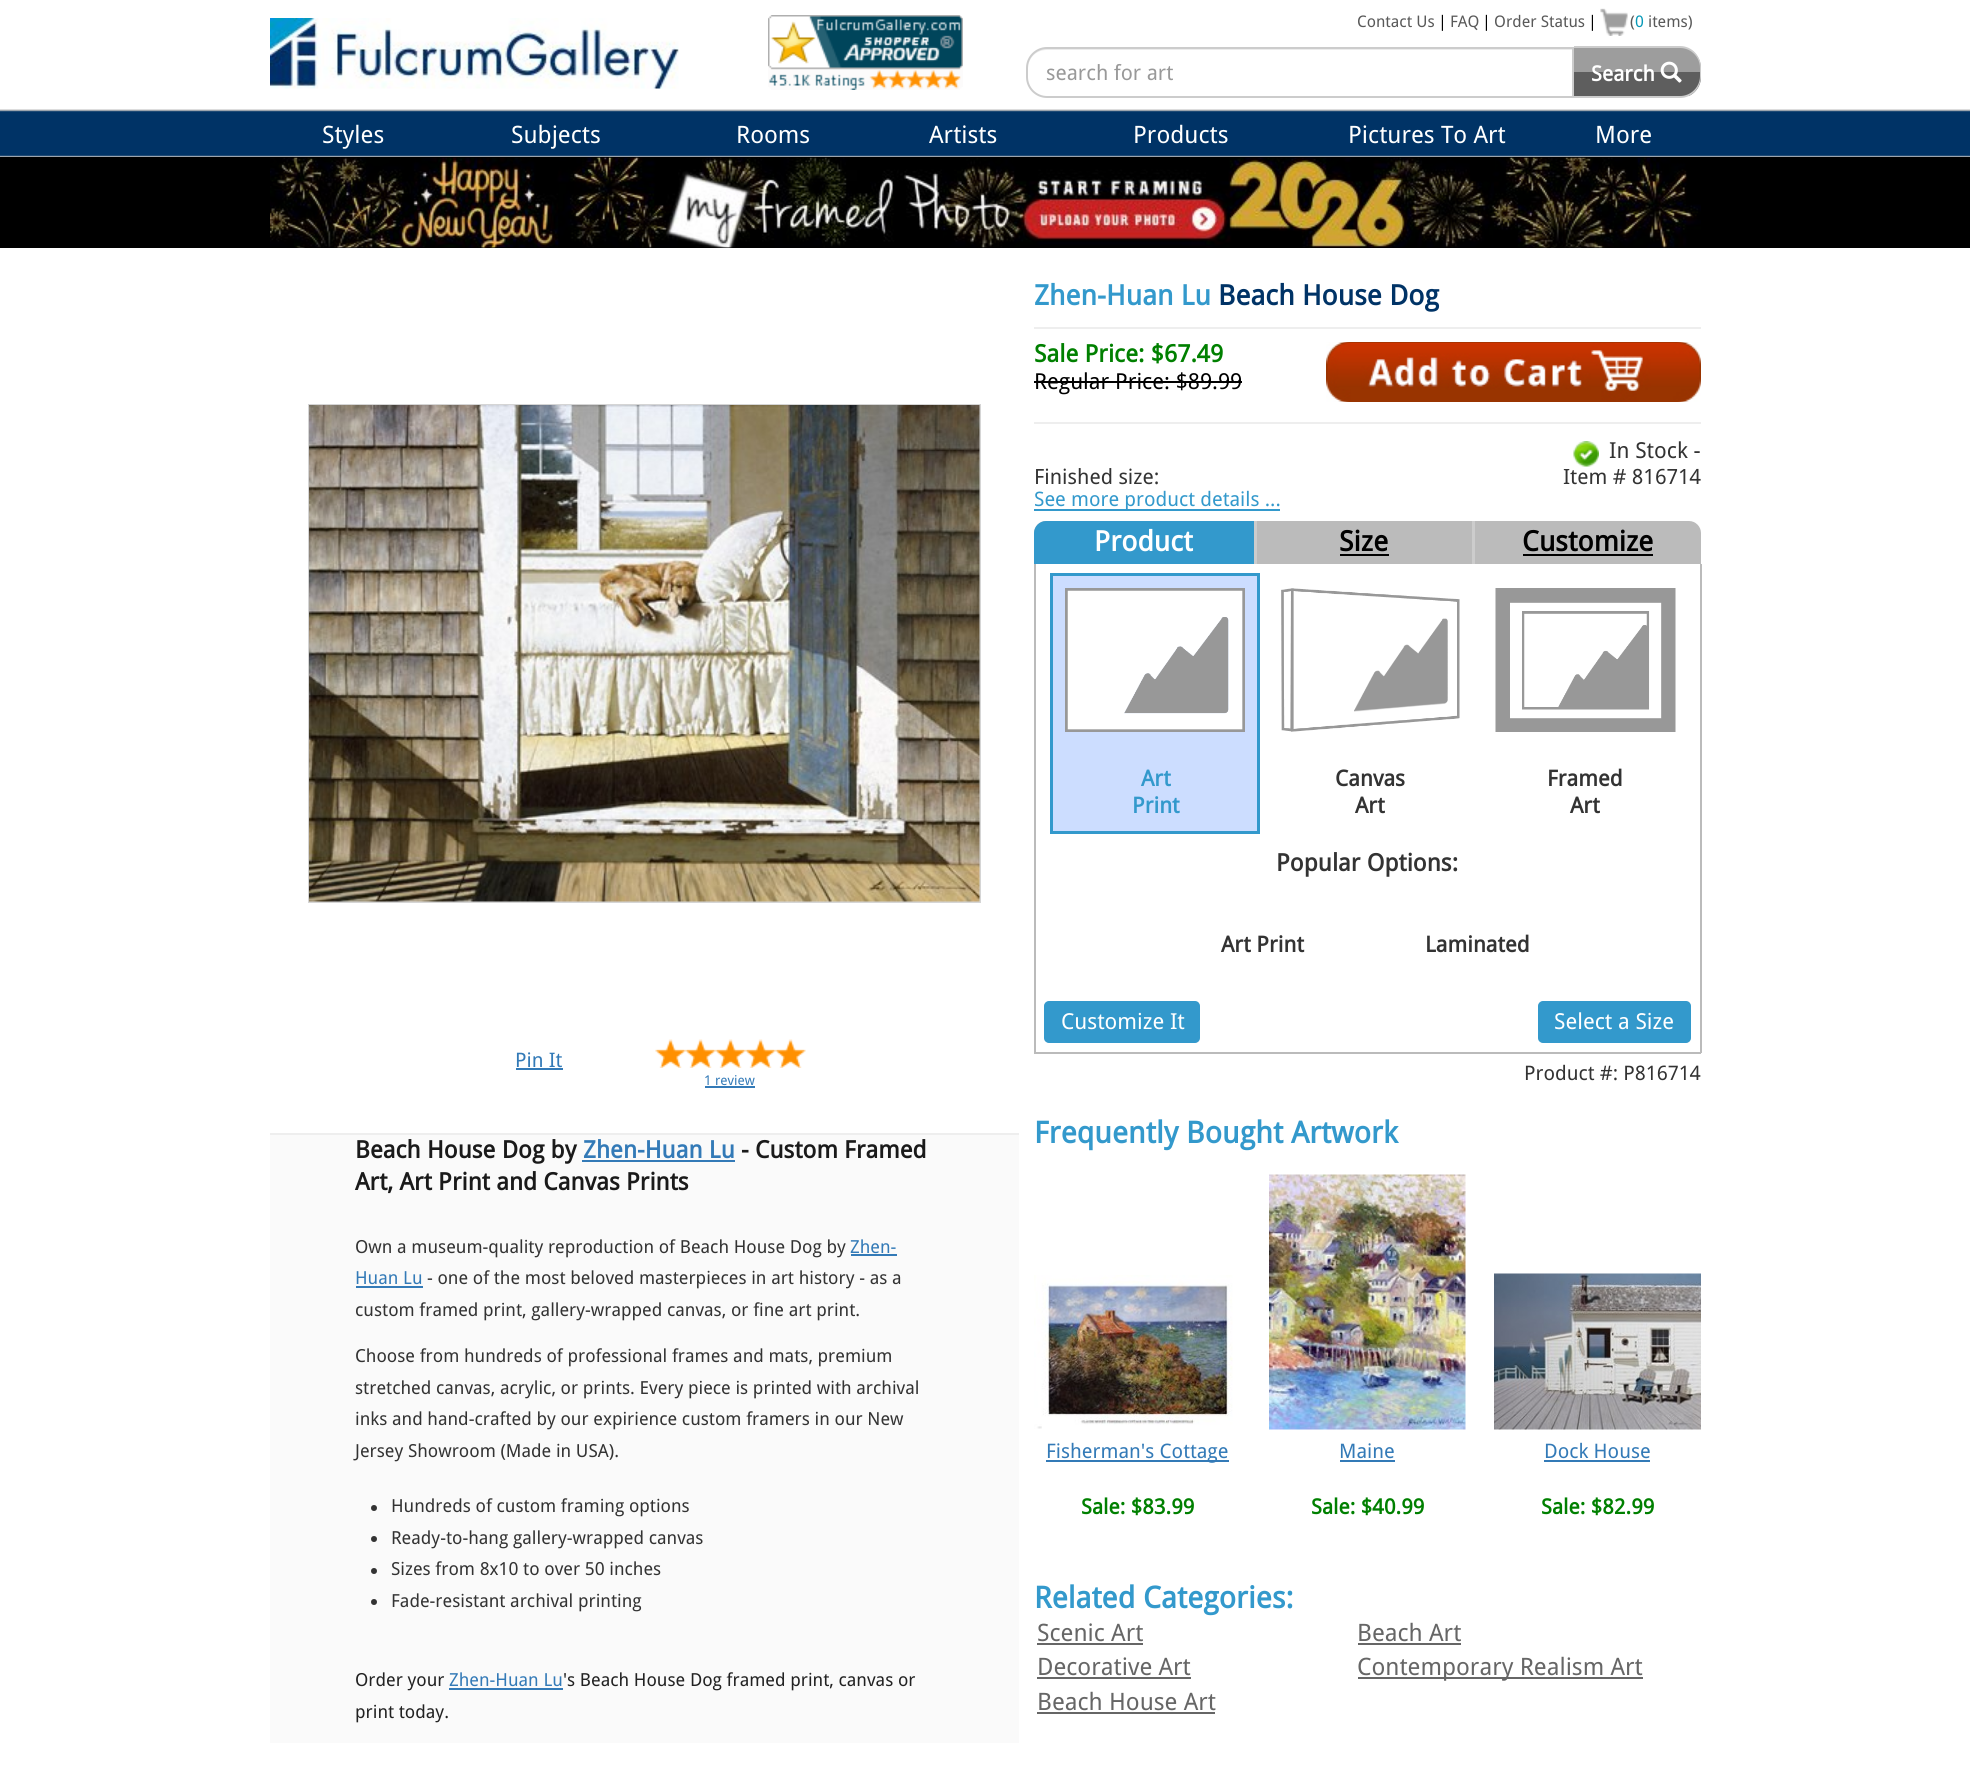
import math
import cairo



def rounded_rect(context, x, y, w, h, r):
    context.new_sub_path()
    for i, (u, v) in enumerate([(x + w - r, y + h - r), (x + r, y + h - r), (x + r, y + r), (x + w - r, y + r)]):
        context.arc(u, v, r, i * math.pi / 2, (i + 1) * math.pi / 2)
    context.close_path()


def draw_image(context, path, x, y, w, h):
    context.save()
    context.set_source_surface(cairo.ImageSurface.create_from_png(path), x, y)
    context.rectangle(x, y, w, h)
    context.fill()
    context.restore()


def draw(context):
    context.set_source_rgb(1, 1, 1)
    context.paint()
    draw_image(context, "images/1.png", 270, 18, 409, 71)
    draw_image(context, "images/2.png", 768, 15, 195, 75)
    draw_image(context, "images/3.png", 1600, 8, 28, 28)
    context.set_source_rgb(236 / 255, 236 / 255, 236 / 255)
    context.new_path()
    context.move_to(1047, 50)
    context.line_to(1572, 50)
    context.line_to(1572, 48)
    context.line_to(1048, 48)
    context.curve_to(1037, 48, 1028, 57, 1028, 68)
    context.line_to(1028, 69)
    context.curve_to(1028, 58, 1036, 50, 1047, 50)
    context.close_path()
    context.fill()
    context.new_path()
    context.move_to(1047, 48)
    context.line_to(1573, 48)
    context.line_to(1573, 97)
    context.line_to(1047, 97)
    context.curve_to(1036, 97, 1027, 88, 1027, 77)
    context.line_to(1027, 68)
    context.curve_to(1027, 57, 1036, 48, 1047, 48)
    context.close_path()
    context.set_source_rgb(204 / 255, 204 / 255, 204 / 255)
    context.stroke()
    context.save()
    context.new_path()
    context.move_to(1574, 47)
    context.line_to(1680, 47)
    context.curve_to(1691.5, 47, 1701, 56.5, 1701, 68)
    context.line_to(1701, 77)
    context.curve_to(1701, 88.5, 1691.5, 98, 1680, 98)
    context.line_to(1574, 98)
    context.close_path()
    context.clip()
    context.set_source_rgb(157 / 255, 157 / 255, 157 / 255)
    context.rectangle(1574, 48, 127, 24)
    context.fill()
    context.set_source_rgb(94 / 255, 94 / 255, 94 / 255)
    context.rectangle(1574, 72, 127, 24)
    context.fill()
    context.restore()
    context.set_fill_rule(cairo.FillRule.EVEN_ODD)
    context.new_path()
    context.move_to(1574, 46)
    context.line_to(1680, 46)
    context.curve_to(1692, 46, 1701, 56, 1701, 68)
    context.line_to(1701, 76)
    context.curve_to(1701, 88, 1692, 98, 1680, 98)
    context.line_to(1574, 98)
    context.close_path()
    context.move_to(1574, 48)
    context.line_to(1680, 48)
    context.curve_to(1691, 48, 1700, 57, 1700, 68)
    context.line_to(1700, 76)
    context.curve_to(1700, 87, 1691, 96, 1680, 96)
    context.line_to(1574, 96)
    context.close_path()
    context.fill()
    draw_image(context, "images/4.png", 1660, 61, 22, 22)
    draw_image(context, "images/5.png", 0, 109, 1970, 48)
    context.set_source_rgb(0, 0, 0)
    context.rectangle(0, 157, 1970, 91)
    context.fill()
    draw_image(context, "images/6.png", 270, 157, 1431, 91)
    context.rectangle(309, 405, 671, 497)
    context.set_source_rgb(213 / 255, 213 / 255, 213 / 255)
    context.stroke()
    draw_image(context, "images/7.png", 309, 405, 671, 497)
    context.set_source_rgb(51 / 255, 122 / 255, 183 / 255)
    context.rectangle(516, 1068, 47, 2)
    context.fill()
    draw_image(context, "images/8.png", 655, 1039, 31, 29)
    draw_image(context, "images/9.png", 685, 1039, 31, 29)
    draw_image(context, "images/9.png", 715, 1039, 31, 29)
    draw_image(context, "images/9.png", 745, 1039, 31, 29)
    draw_image(context, "images/10.png", 775, 1039, 31, 29)
    context.rectangle(705, 1086, 50, 2)
    context.fill()
    context.set_source_rgb(238 / 255, 238 / 255, 238 / 255)
    context.rectangle(1034, 327, 667, 2)
    context.fill()
    context.set_source_rgb(0, 0, 0)
    context.rectangle(1034, 381, 208, 2)
    context.fill()
    draw_image(context, "images/11.png", 1326, 342, 375, 60)
    context.set_source_rgb(238 / 255, 238 / 255, 238 / 255)
    context.rectangle(1034, 422, 667, 2)
    context.fill()
    draw_image(context, "images/12.png", 1573, 441, 26, 26)
    context.set_source_rgb(51 / 255, 153 / 255, 204 / 255)
    context.rectangle(1034, 509, 246, 2)
    context.fill()
    context.set_source_rgb(187 / 255, 187 / 255, 187 / 255)
    context.new_path()
    context.move_to(1046, 521)
    context.line_to(1689, 521)
    context.curve_to(1695.5, 521, 1701, 526.5, 1701, 533)
    context.line_to(1701, 564)
    context.line_to(1034, 564)
    context.line_to(1034, 533)
    context.curve_to(1034, 526.5, 1039.5, 521, 1046, 521)
    context.close_path()
    context.fill()
    context.set_source_rgb(51 / 255, 153 / 255, 204 / 255)
    context.new_path()
    context.move_to(1046, 521)
    context.line_to(1254, 521)
    context.line_to(1254, 564)
    context.line_to(1034, 564)
    context.line_to(1034, 533)
    context.curve_to(1034, 526.5, 1039.5, 521, 1046, 521)
    context.close_path()
    context.fill()
    context.set_source_rgb(204 / 255, 204 / 255, 204 / 255)
    context.rectangle(1472, 521, 3, 43)
    context.fill()
    context.rectangle(1254, 521, 3, 43)
    context.fill()
    context.set_source_rgb(0, 0, 0)
    context.rectangle(1340, 554, 49, 2)
    context.fill()
    context.rectangle(1523, 554, 130, 2)
    context.fill()
    context.set_source_rgb(187 / 255, 187 / 255, 187 / 255)
    context.rectangle(1700, 564, 2, 489)
    context.fill()
    context.rectangle(1034, 1052, 667, 2)
    context.fill()
    context.rectangle(1034, 564, 2, 489)
    context.fill()
    context.set_source_rgb(204 / 255, 221 / 255, 1)
    context.rectangle(1051.5, 574.5, 207, 258)
    context.fill_preserve()
    context.set_source_rgb(51 / 255, 153 / 255, 204 / 255)
    context.set_line_width(3)
    context.stroke()
    draw_image(context, "images/13.png", 1065, 588, 180, 144)
    draw_image(context, "images/14.png", 1281, 588, 179, 144)
    draw_image(context, "images/15.png", 1495, 588, 181, 144)
    rounded_rect(context, 1045, 1002, 154, 40, 4)
    context.fill_preserve()
    context.set_line_width(2)
    context.stroke()
    rounded_rect(context, 1539, 1002, 151, 40, 4)
    context.fill_preserve()
    context.stroke()
    draw_image(context, "images/16.png", 1034, 1275, 199, 154)
    context.set_source_rgb(51 / 255, 122 / 255, 183 / 255)
    context.rectangle(1046, 1460, 183, 2)
    context.fill()
    draw_image(context, "images/17.png", 1269, 1174, 197, 256)
    context.rectangle(1340, 1460, 55, 2)
    context.fill()
    draw_image(context, "images/18.png", 1494, 1273, 207, 157)
    context.rectangle(1544, 1460, 106, 2)
    context.fill()
    context.set_source_rgb(102 / 255, 102 / 255, 102 / 255)
    context.rectangle(1037, 1643, 106, 2)
    context.fill()
    context.rectangle(1358, 1643, 103, 2)
    context.fill()
    context.rectangle(1037, 1677, 154, 2)
    context.fill()
    context.rectangle(1358, 1677, 285, 2)
    context.fill()
    context.rectangle(1037, 1712, 178, 2)
    context.fill()
    context.set_source_rgb(250 / 255, 250 / 255, 250 / 255)
    context.rectangle(270, 1135, 749, 608)
    context.fill()
    context.set_source_rgb(238 / 255, 238 / 255, 238 / 255)
    context.rectangle(270, 1133, 749, 2)
    context.fill()
    context.set_source_rgb(51 / 255, 122 / 255, 183 / 255)
    context.rectangle(582, 1160, 153, 2)
    context.fill()
    context.rectangle(851, 1254, 46, 2)
    context.fill()
    context.rectangle(356, 1286, 67, 2)
    context.fill()
    context.set_source_rgb(51 / 255, 51 / 255, 51 / 255)
    context.arc(374, 1508, 3, 0, 2 * math.pi)
    context.fill()
    context.arc(374, 1539, 3, 0, 2 * math.pi)
    context.fill()
    context.arc(374, 1571, 3, 0, 2 * math.pi)
    context.fill()
    context.arc(374, 1602, 3, 0, 2 * math.pi)
    context.fill()
    context.set_source_rgb(51 / 255, 122 / 255, 183 / 255)
    context.rectangle(449, 1688, 114, 2)
    context.fill()
    context.select_font_face("Droid Sans")
    context.set_font_size(16)
    context.set_source_rgb(89 / 255, 89 / 255, 89 / 255)
    context.move_to(1357, 27)
    context.show_text("Contact Us")
    context.set_source_rgb(0, 0, 0)
    context.move_to(1438, 27)
    context.show_text("|")
    context.set_source_rgb(89 / 255, 89 / 255, 89 / 255)
    context.move_to(1450, 27)
    context.show_text("FAQ")
    context.set_source_rgb(0, 0, 0)
    context.move_to(1482, 27)
    context.show_text("|")
    context.set_source_rgb(89 / 255, 89 / 255, 89 / 255)
    context.move_to(1494, 27)
    context.show_text("Order Status")
    context.set_source_rgb(0, 0, 0)
    context.move_to(1588, 27)
    context.show_text("|")
    context.set_source_rgb(89 / 255, 89 / 255, 89 / 255)
    context.move_to(1630, 27)
    context.show_text("(")
    context.set_source_rgb(6 / 255, 153 / 255, 184 / 255)
    context.move_to(1635, 27)
    context.show_text("0")
    context.set_source_rgb(89 / 255, 89 / 255, 89 / 255)
    context.move_to(1648, 27)
    context.show_text("items)")
    context.set_font_size(21)
    context.set_source_rgb(153 / 255, 153 / 255, 153 / 255)
    context.move_to(1046, 80)
    context.show_text("search for art")
    context.select_font_face("Droid Sans", cairo.FontSlant.NORMAL, cairo.FontWeight.BOLD)
    context.set_source_rgb(1, 1, 1)
    context.move_to(1591, 81)
    context.show_text("Search")
    context.select_font_face("Droid Sans")
    context.set_font_size(24)
    context.move_to(322, 143)
    context.show_text("Styles")
    context.move_to(511, 143)
    context.show_text("Subjects")
    context.move_to(736, 143)
    context.show_text("Rooms")
    context.move_to(929, 143)
    context.show_text("Artists")
    context.move_to(1133, 143)
    context.show_text("Products")
    context.move_to(1348, 143)
    context.show_text("Pictures To Art")
    context.move_to(1595, 143)
    context.show_text("More")
    context.select_font_face("Droid Sans", cairo.FontSlant.NORMAL, cairo.FontWeight.BOLD)
    context.set_font_size(28)
    context.set_source_rgb(51 / 255, 153 / 255, 204 / 255)
    context.move_to(1034, 305)
    context.show_text("Zhen-Huan Lu")
    context.set_source_rgb(0, 51 / 255, 102 / 255)
    context.move_to(1218, 305)
    context.show_text("Beach House Dog")
    context.select_font_face("Droid Sans")
    context.set_font_size(20)
    context.set_source_rgb(51 / 255, 122 / 255, 183 / 255)
    context.move_to(515, 1067)
    context.show_text("Pin It")
    context.set_font_size(13.5)
    context.move_to(704, 1085)
    context.show_text("1 review")
    context.select_font_face("Droid Sans", cairo.FontSlant.NORMAL, cairo.FontWeight.BOLD)
    context.set_font_size(24)
    context.set_source_rgb(0, 128 / 255, 0)
    context.move_to(1034, 362)
    context.show_text("Sale Price: $67.49")
    context.select_font_face("Droid Sans")
    context.set_font_size(22)
    context.set_source_rgb(0, 0, 0)
    context.move_to(1034, 389)
    context.show_text("Regular Price: $89.99")
    context.set_source_rgb(51 / 255, 51 / 255, 51 / 255)
    context.move_to(1609, 458)
    context.show_text("In Stock -")
    context.set_font_size(21)
    context.move_to(1034, 484)
    context.show_text("Finished size:")
    context.move_to(1563, 484)
    context.show_text("Item # 816714")
    context.set_font_size(20)
    context.set_source_rgb(51 / 255, 153 / 255, 204 / 255)
    context.move_to(1034, 506)
    context.show_text("See more product details ...")
    context.select_font_face("Droid Sans", cairo.FontSlant.NORMAL, cairo.FontWeight.BOLD)
    context.set_font_size(28)
    context.set_source_rgb(1, 1, 1)
    context.move_to(1094, 551)
    context.show_text("Product")
    context.set_source_rgb(0, 0, 0)
    context.move_to(1339, 551)
    context.show_text("Size")
    context.move_to(1522, 551)
    context.show_text("Customize")
    context.set_font_size(22)
    context.set_source_rgb(51 / 255, 153 / 255, 204 / 255)
    context.move_to(1141, 786)
    context.show_text("Art")
    context.move_to(1132, 813)
    context.show_text("Print")
    context.set_source_rgb(51 / 255, 51 / 255, 51 / 255)
    context.move_to(1335, 786)
    context.show_text("Canvas")
    context.move_to(1355, 813)
    context.show_text("Art")
    context.move_to(1547, 786)
    context.show_text("Framed")
    context.move_to(1570, 813)
    context.show_text("Art")
    context.set_font_size(24)
    context.move_to(1276, 871)
    context.show_text("Popular Options:")
    context.set_font_size(22)
    context.move_to(1221, 952)
    context.show_text("Art Print")
    context.move_to(1425, 952)
    context.show_text("Laminated")
    context.select_font_face("Droid Sans")
    context.set_source_rgb(1, 1, 1)
    context.move_to(1061, 1029)
    context.show_text("Customize It")
    context.move_to(1554, 1029)
    context.show_text("Select a Size")
    context.set_font_size(20)
    context.set_source_rgb(51 / 255, 51 / 255, 51 / 255)
    context.move_to(1524, 1080)
    context.show_text("Product #: P816714")
    context.select_font_face("Droid Sans", cairo.FontSlant.NORMAL, cairo.FontWeight.BOLD)
    context.set_font_size(30)
    context.set_source_rgb(51 / 255, 153 / 255, 204 / 255)
    context.move_to(1034, 1143)
    context.show_text("Frequently Bought Artwork")
    context.select_font_face("Droid Sans")
    context.set_font_size(20)
    context.set_source_rgb(51 / 255, 122 / 255, 183 / 255)
    context.move_to(1046, 1458)
    context.show_text("Fisherman's Cottage")
    context.select_font_face("Droid Sans", cairo.FontSlant.NORMAL, cairo.FontWeight.BOLD)
    context.set_font_size(21)
    context.set_source_rgb(0, 128 / 255, 0)
    context.move_to(1081, 1514)
    context.show_text("Sale: $83.99")
    context.select_font_face("Droid Sans")
    context.set_font_size(20)
    context.set_source_rgb(51 / 255, 122 / 255, 183 / 255)
    context.move_to(1339, 1458)
    context.show_text("Maine")
    context.select_font_face("Droid Sans", cairo.FontSlant.NORMAL, cairo.FontWeight.BOLD)
    context.set_font_size(21)
    context.set_source_rgb(0, 128 / 255, 0)
    context.move_to(1311, 1514)
    context.show_text("Sale: $40.99")
    context.select_font_face("Droid Sans")
    context.set_font_size(20)
    context.set_source_rgb(51 / 255, 122 / 255, 183 / 255)
    context.move_to(1544, 1458)
    context.show_text("Dock House")
    context.select_font_face("Droid Sans", cairo.FontSlant.NORMAL, cairo.FontWeight.BOLD)
    context.set_font_size(21)
    context.set_source_rgb(0, 128 / 255, 0)
    context.move_to(1541, 1514)
    context.show_text("Sale: $82.99")
    context.set_font_size(30)
    context.set_source_rgb(51 / 255, 153 / 255, 204 / 255)
    context.move_to(1034, 1608)
    context.show_text("Related Categories:")
    context.select_font_face("Droid Sans")
    context.set_font_size(24)
    context.set_source_rgb(102 / 255, 102 / 255, 102 / 255)
    context.move_to(1037, 1641)
    context.show_text("Scenic Art")
    context.move_to(1357, 1641)
    context.show_text("Beach Art")
    context.move_to(1037, 1675)
    context.show_text("Decorative Art")
    context.move_to(1357, 1675)
    context.show_text("Contemporary Realism Art")
    context.move_to(1037, 1710)
    context.show_text("Beach House Art")
    context.select_font_face("Droid Sans", cairo.FontSlant.NORMAL, cairo.FontWeight.BOLD)
    context.set_source_rgb(26 / 255, 26 / 255, 26 / 255)
    context.move_to(355, 1158)
    context.show_text("Beach House Dog by")
    context.set_source_rgb(51 / 255, 122 / 255, 183 / 255)
    context.move_to(583, 1158)
    context.show_text("Zhen-Huan Lu")
    context.set_source_rgb(26 / 255, 26 / 255, 26 / 255)
    context.move_to(741, 1158)
    context.show_text("- Custom Framed")
    context.move_to(355, 1190)
    context.show_text("Art, Art Print and Canvas Prints")
    context.select_font_face("Droid Sans")
    context.set_font_size(18)
    context.set_source_rgb(51 / 255, 51 / 255, 51 / 255)
    context.move_to(355, 1253)
    context.show_text("Own a museum-quality reproduction of Beach House Dog by")
    context.set_source_rgb(51 / 255, 122 / 255, 183 / 255)
    context.move_to(850, 1253)
    context.show_text("Zhen-")
    context.move_to(355, 1284)
    context.show_text("Huan Lu")
    context.set_source_rgb(51 / 255, 51 / 255, 51 / 255)
    context.move_to(427, 1284)
    context.show_text("- one of the most beloved masterpieces in art history - as a")
    context.move_to(355, 1316)
    context.show_text("custom framed print, gallery-wrapped canvas, or fine art print.")
    context.move_to(355, 1362)
    context.show_text("Choose from hundreds of professional frames and mats, premium")
    context.move_to(355, 1394)
    context.show_text("stretched canvas, acrylic, or prints. Every piece is printed with archival")
    context.move_to(355, 1425)
    context.show_text("inks and hand-crafted by our expirience custom framers in our New")
    context.move_to(355, 1457)
    context.show_text("Jersey Showroom (Made in USA).")
    context.move_to(391, 1512)
    context.show_text("Hundreds of custom framing options")
    context.move_to(391, 1544)
    context.show_text("Ready-to-hang gallery-wrapped canvas")
    context.move_to(391, 1575)
    context.show_text("Sizes from 8x10 to over 50 inches")
    context.move_to(391, 1607)
    context.show_text("Fade-resistant archival printing")
    context.set_source_rgb(34 / 255, 34 / 255, 34 / 255)
    context.move_to(355, 1686)
    context.show_text("Order your")
    context.set_source_rgb(51 / 255, 122 / 255, 183 / 255)
    context.move_to(449, 1686)
    context.show_text("Zhen-Huan Lu")
    context.set_source_rgb(34 / 255, 34 / 255, 34 / 255)
    context.move_to(563, 1686)
    context.show_text("'s Beach House Dog framed print, canvas or")
    context.move_to(355, 1718)
    context.show_text("print today.")


surface = cairo.ImageSurface(cairo.Format.RGB24, 1970, 1769)
context = cairo.Context(surface)
options = cairo.FontOptions()
options.set_hint_metrics(cairo.HintMetrics.OFF)
options.set_hint_style(cairo.HintStyle.NONE)
context.set_font_options(options)
context.set_miter_limit(4)
draw(context)
surface.write_to_png("out.png")
